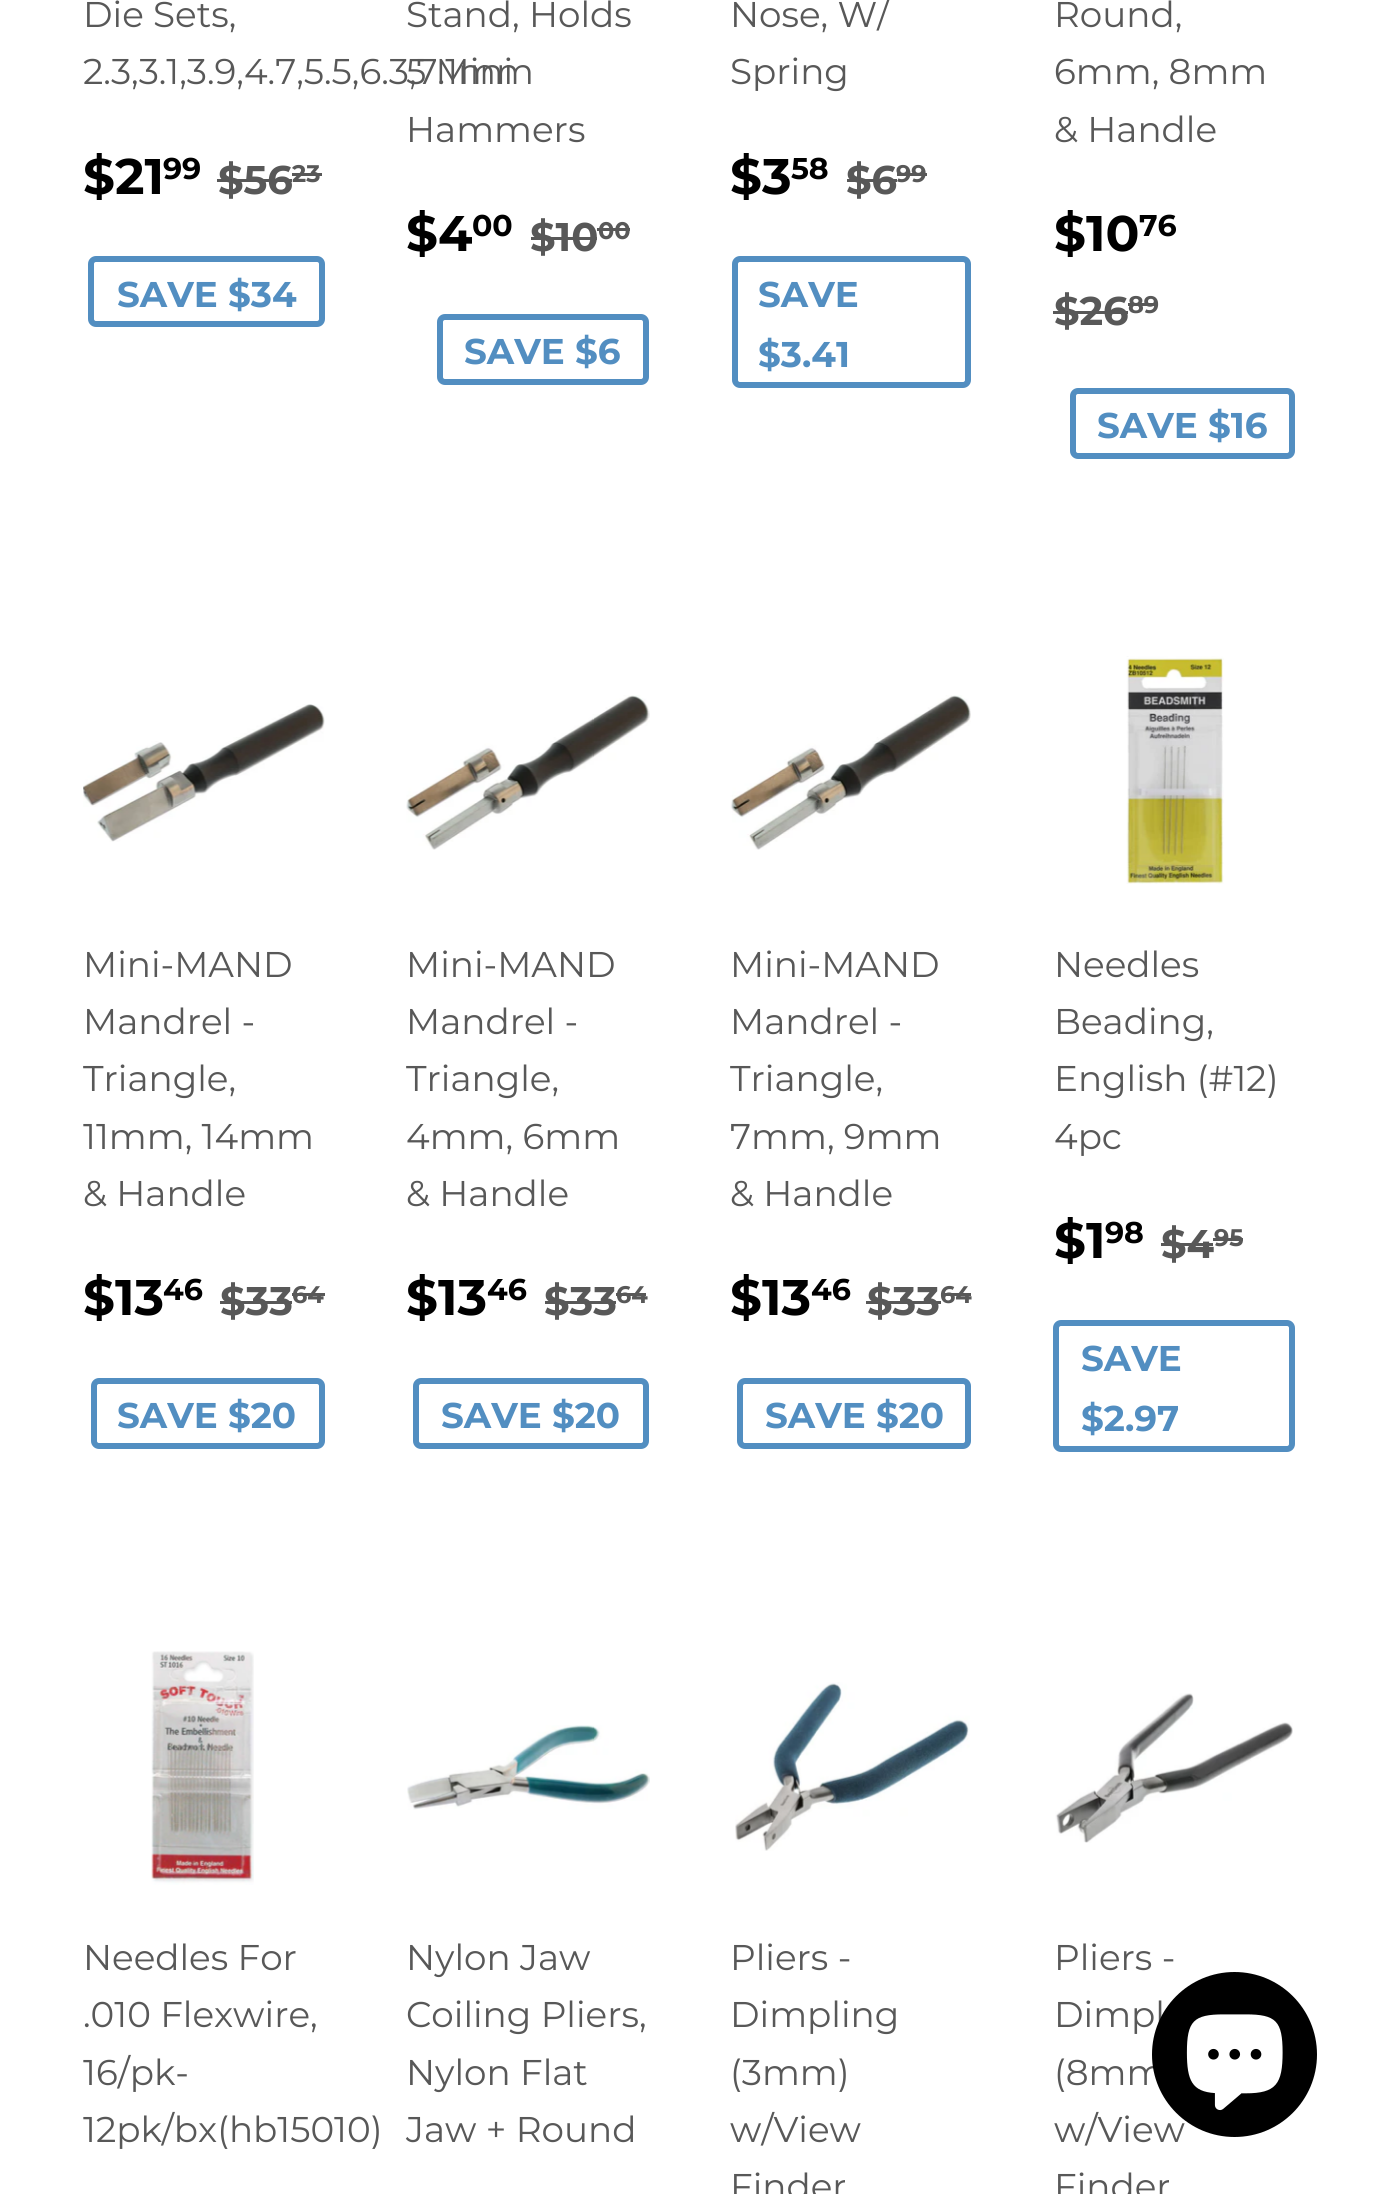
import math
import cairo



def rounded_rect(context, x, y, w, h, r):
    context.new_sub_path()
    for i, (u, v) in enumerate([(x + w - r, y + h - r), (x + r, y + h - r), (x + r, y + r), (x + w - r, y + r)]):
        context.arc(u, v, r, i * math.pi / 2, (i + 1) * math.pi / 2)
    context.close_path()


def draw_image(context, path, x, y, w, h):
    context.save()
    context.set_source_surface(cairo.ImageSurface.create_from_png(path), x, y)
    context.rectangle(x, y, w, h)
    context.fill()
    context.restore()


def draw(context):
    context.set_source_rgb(1, 1, 1)
    context.paint()
    context.set_source_rgb(88 / 255, 88 / 255, 88 / 255)
    context.rectangle(217, 179, 75, 3)
    context.fill()
    context.rectangle(292, 173, 30, 3)
    context.fill()
    rounded_rect(context, 91, 259, 231, 65, 5)
    context.set_source_rgb(82 / 255, 142 / 255, 193 / 255)
    context.set_line_width(6)
    context.stroke()
    context.set_source_rgb(88 / 255, 88 / 255, 88 / 255)
    context.rectangle(531, 237, 66, 3)
    context.fill()
    context.rectangle(597, 228, 33, 3)
    context.fill()
    rounded_rect(context, 440, 317, 206, 65, 5)
    context.set_source_rgb(82 / 255, 142 / 255, 193 / 255)
    context.stroke()
    context.set_source_rgb(88 / 255, 88 / 255, 88 / 255)
    context.rectangle(847, 179, 50, 3)
    context.fill()
    context.rectangle(897, 173, 30, 3)
    context.fill()
    rounded_rect(context, 735, 259, 233, 126, 5)
    context.set_source_rgb(82 / 255, 142 / 255, 193 / 255)
    context.stroke()
    context.set_source_rgb(88 / 255, 88 / 255, 88 / 255)
    context.rectangle(1053, 311, 75, 3)
    context.fill()
    context.rectangle(1128, 303, 30, 3)
    context.fill()
    rounded_rect(context, 1073, 391, 219, 65, 5)
    context.set_source_rgb(82 / 255, 142 / 255, 193 / 255)
    context.stroke()
    draw_image(context, "images/1.png", 83, 704, 242, 138)
    context.set_source_rgb(88 / 255, 88 / 255, 88 / 255)
    context.rectangle(220, 1301, 72, 3)
    context.fill()
    context.rectangle(292, 1293, 33, 3)
    context.fill()
    rounded_rect(context, 94, 1381, 228, 65, 5)
    context.set_source_rgb(82 / 255, 142 / 255, 193 / 255)
    context.stroke()
    draw_image(context, "images/2.png", 406, 695, 244, 155)
    context.set_source_rgb(88 / 255, 88 / 255, 88 / 255)
    context.rectangle(545, 1301, 71, 3)
    context.fill()
    context.rectangle(616, 1293, 30, 3)
    context.fill()
    rounded_rect(context, 416, 1381, 230, 65, 5)
    context.set_source_rgb(82 / 255, 142 / 255, 193 / 255)
    context.stroke()
    draw_image(context, "images/3.png", 730, 695, 241, 155)
    context.set_source_rgb(88 / 255, 88 / 255, 88 / 255)
    context.rectangle(866, 1301, 75, 3)
    context.fill()
    context.rectangle(941, 1293, 30, 3)
    context.fill()
    rounded_rect(context, 740, 1381, 228, 65, 5)
    context.set_source_rgb(82 / 255, 142 / 255, 193 / 255)
    context.stroke()
    draw_image(context, "images/4.png", 1126, 656, 98, 228)
    context.set_source_rgb(88 / 255, 88 / 255, 88 / 255)
    context.rectangle(1161, 1243, 52, 3)
    context.fill()
    context.rectangle(1213, 1238, 30, 3)
    context.fill()
    rounded_rect(context, 1056, 1323, 236, 126, 5)
    context.set_source_rgb(82 / 255, 142 / 255, 193 / 255)
    context.stroke()
    draw_image(context, "images/5.png", 151, 1651, 103, 234)
    draw_image(context, "images/6.png", 407, 1725, 243, 85)
    draw_image(context, "images/7.png", 735, 1682, 235, 169)
    draw_image(context, "images/8.png", 1055, 1693, 238, 150)
    context.select_font_face("Montserrat")
    context.set_font_size(35.75)
    context.set_source_rgb(88 / 255, 88 / 255, 88 / 255)
    context.move_to(83, 27)
    context.show_text("Die Sets,")
    context.move_to(83, 84)
    context.show_text("2.3,3.1,3.9,4.7,5.5,6.3,7.1mm")
    context.select_font_face("Montserrat", cairo.FontSlant.NORMAL, cairo.FontWeight.BOLD)
    context.set_font_size(50)
    context.set_source_rgb(0, 0, 0)
    context.move_to(83, 194)
    context.show_text("$21")
    context.set_font_size(30)
    context.move_to(163, 179)
    context.show_text("99")
    context.set_font_size(40)
    context.set_source_rgb(88 / 255, 88 / 255, 88 / 255)
    context.move_to(218, 194)
    context.show_text("$56")
    context.set_font_size(24)
    context.move_to(292, 182)
    context.show_text("23")
    context.set_font_size(35.75)
    context.set_source_rgb(82 / 255, 142 / 255, 193 / 255)
    context.move_to(117, 307)
    context.show_text("SAVE $34")
    context.select_font_face("Montserrat")
    context.set_source_rgb(88 / 255, 88 / 255, 88 / 255)
    context.move_to(406, 27)
    context.show_text("Stand, Holds")
    context.move_to(406, 84)
    context.show_text("5 Mini")
    context.move_to(406, 142)
    context.show_text("Hammers")
    context.select_font_face("Montserrat", cairo.FontSlant.NORMAL, cairo.FontWeight.BOLD)
    context.set_font_size(50)
    context.set_source_rgb(0, 0, 0)
    context.move_to(406, 251)
    context.show_text("$4")
    context.set_font_size(30)
    context.move_to(472, 236)
    context.show_text("00")
    context.set_font_size(40)
    context.set_source_rgb(88 / 255, 88 / 255, 88 / 255)
    context.move_to(530, 251)
    context.show_text("$10")
    context.set_font_size(24)
    context.move_to(598, 239)
    context.show_text("00")
    context.set_font_size(35.75)
    context.set_source_rgb(82 / 255, 142 / 255, 193 / 255)
    context.move_to(464, 364)
    context.show_text("SAVE $6")
    context.select_font_face("Montserrat")
    context.set_source_rgb(88 / 255, 88 / 255, 88 / 255)
    context.move_to(730, 27)
    context.show_text("Nose, W/")
    context.move_to(730, 84)
    context.show_text("Spring")
    context.select_font_face("Montserrat", cairo.FontSlant.NORMAL, cairo.FontWeight.BOLD)
    context.set_font_size(50)
    context.set_source_rgb(0, 0, 0)
    context.move_to(730, 194)
    context.show_text("$3")
    context.set_font_size(30)
    context.move_to(791, 179)
    context.show_text("58")
    context.set_font_size(40)
    context.set_source_rgb(88 / 255, 88 / 255, 88 / 255)
    context.move_to(846, 194)
    context.show_text("$6")
    context.set_font_size(24)
    context.move_to(896, 182)
    context.show_text("99")
    context.set_font_size(35.75)
    context.set_source_rgb(82 / 255, 142 / 255, 193 / 255)
    context.move_to(758, 307)
    context.show_text("SAVE")
    context.move_to(758, 367)
    context.show_text("$3.41")
    context.select_font_face("Montserrat")
    context.set_source_rgb(88 / 255, 88 / 255, 88 / 255)
    context.move_to(1054, 27)
    context.show_text("Round,")
    context.move_to(1054, 84)
    context.show_text("6mm, 8mm")
    context.move_to(1054, 142)
    context.show_text("& Handle")
    context.select_font_face("Montserrat", cairo.FontSlant.NORMAL, cairo.FontWeight.BOLD)
    context.set_font_size(50)
    context.set_source_rgb(0, 0, 0)
    context.move_to(1054, 251)
    context.show_text("$10")
    context.set_font_size(30)
    context.move_to(1139, 236)
    context.show_text("76")
    context.set_font_size(40)
    context.set_source_rgb(88 / 255, 88 / 255, 88 / 255)
    context.move_to(1054, 325)
    context.show_text("$26")
    context.set_font_size(24)
    context.move_to(1128, 313)
    context.show_text("89")
    context.set_font_size(35.75)
    context.set_source_rgb(82 / 255, 142 / 255, 193 / 255)
    context.move_to(1097, 438)
    context.show_text("SAVE $16")
    context.select_font_face("Montserrat")
    context.set_source_rgb(88 / 255, 88 / 255, 88 / 255)
    context.move_to(83, 977)
    context.show_text("Mini-MAND")
    context.move_to(83, 1034)
    context.show_text("Mandrel -")
    context.move_to(83, 1091)
    context.show_text("Triangle,")
    context.move_to(83, 1149)
    context.show_text("11mm, 14mm")
    context.move_to(83, 1206)
    context.show_text("& Handle")
    context.select_font_face("Montserrat", cairo.FontSlant.NORMAL, cairo.FontWeight.BOLD)
    context.set_font_size(50)
    context.set_source_rgb(0, 0, 0)
    context.move_to(83, 1315)
    context.show_text("$13")
    context.set_font_size(30)
    context.move_to(163, 1300)
    context.show_text("46")
    context.set_font_size(40)
    context.set_source_rgb(88 / 255, 88 / 255, 88 / 255)
    context.move_to(220, 1315)
    context.show_text("$33")
    context.set_font_size(24)
    context.move_to(292, 1303)
    context.show_text("64")
    context.set_font_size(35.75)
    context.set_source_rgb(82 / 255, 142 / 255, 193 / 255)
    context.move_to(117, 1428)
    context.show_text("SAVE $20")
    context.select_font_face("Montserrat")
    context.set_source_rgb(88 / 255, 88 / 255, 88 / 255)
    context.move_to(406, 977)
    context.show_text("Mini-MAND")
    context.move_to(406, 1034)
    context.show_text("Mandrel -")
    context.move_to(406, 1091)
    context.show_text("Triangle,")
    context.move_to(406, 1149)
    context.show_text("4mm, 6mm")
    context.move_to(406, 1206)
    context.show_text("& Handle")
    context.select_font_face("Montserrat", cairo.FontSlant.NORMAL, cairo.FontWeight.BOLD)
    context.set_font_size(50)
    context.set_source_rgb(0, 0, 0)
    context.move_to(406, 1315)
    context.show_text("$13")
    context.set_font_size(30)
    context.move_to(487, 1300)
    context.show_text("46")
    context.set_font_size(40)
    context.set_source_rgb(88 / 255, 88 / 255, 88 / 255)
    context.move_to(544, 1315)
    context.show_text("$33")
    context.set_font_size(24)
    context.move_to(616, 1303)
    context.show_text("64")
    context.set_font_size(35.75)
    context.set_source_rgb(82 / 255, 142 / 255, 193 / 255)
    context.move_to(441, 1428)
    context.show_text("SAVE $20")
    context.select_font_face("Montserrat")
    context.set_source_rgb(88 / 255, 88 / 255, 88 / 255)
    context.move_to(730, 977)
    context.show_text("Mini-MAND")
    context.move_to(730, 1034)
    context.show_text("Mandrel -")
    context.move_to(730, 1091)
    context.show_text("Triangle,")
    context.move_to(730, 1149)
    context.show_text("7mm, 9mm")
    context.move_to(730, 1206)
    context.show_text("& Handle")
    context.select_font_face("Montserrat", cairo.FontSlant.NORMAL, cairo.FontWeight.BOLD)
    context.set_font_size(50)
    context.set_source_rgb(0, 0, 0)
    context.move_to(730, 1315)
    context.show_text("$13")
    context.set_font_size(30)
    context.move_to(811, 1300)
    context.show_text("46")
    context.set_font_size(40)
    context.set_source_rgb(88 / 255, 88 / 255, 88 / 255)
    context.move_to(867, 1315)
    context.show_text("$33")
    context.set_font_size(24)
    context.move_to(940, 1303)
    context.show_text("64")
    context.set_font_size(35.75)
    context.set_source_rgb(82 / 255, 142 / 255, 193 / 255)
    context.move_to(765, 1428)
    context.show_text("SAVE $20")
    context.select_font_face("Montserrat")
    context.set_source_rgb(88 / 255, 88 / 255, 88 / 255)
    context.move_to(1054, 977)
    context.show_text("Needles")
    context.move_to(1054, 1034)
    context.show_text("Beading,")
    context.move_to(1054, 1091)
    context.show_text("English (#12)")
    context.move_to(1054, 1149)
    context.show_text("4pc")
    context.select_font_face("Montserrat", cairo.FontSlant.NORMAL, cairo.FontWeight.BOLD)
    context.set_font_size(50)
    context.set_source_rgb(0, 0, 0)
    context.move_to(1054, 1258)
    context.show_text("$1")
    context.set_font_size(30)
    context.move_to(1105, 1243)
    context.show_text("98")
    context.set_font_size(40)
    context.set_source_rgb(88 / 255, 88 / 255, 88 / 255)
    context.move_to(1161, 1258)
    context.show_text("$4")
    context.set_font_size(24)
    context.move_to(1214, 1246)
    context.show_text("95")
    context.set_font_size(35.75)
    context.set_source_rgb(82 / 255, 142 / 255, 193 / 255)
    context.move_to(1081, 1371)
    context.show_text("SAVE")
    context.move_to(1081, 1431)
    context.show_text("$2.97")
    context.select_font_face("Montserrat")
    context.set_source_rgb(88 / 255, 88 / 255, 88 / 255)
    context.move_to(83, 1970)
    context.show_text("Needles For")
    context.move_to(83, 2027)
    context.show_text(".010 Flexwire,")
    context.move_to(83, 2085)
    context.show_text("16/pk-")
    context.move_to(83, 2142)
    context.show_text("12pk/bx(hb15010)")
    context.move_to(406, 1970)
    context.show_text("Nylon Jaw")
    context.move_to(406, 2027)
    context.show_text("Coiling Pliers,")
    context.move_to(406, 2085)
    context.show_text("Nylon Flat")
    context.move_to(406, 2142)
    context.show_text("Jaw + Round")
    context.move_to(730, 1970)
    context.show_text("Pliers -")
    context.move_to(730, 2027)
    context.show_text("Dimpling")
    context.move_to(730, 2085)
    context.show_text("(3mm)")
    context.move_to(730, 2142)
    context.show_text("w/View")
    context.move_to(730, 2199)
    context.show_text("Finder")
    context.move_to(1054, 1970)
    context.show_text("Pliers -")
    context.move_to(1054, 2027)
    context.show_text("Dimpl")
    context.move_to(1054, 2085)
    context.show_text("(8mm")
    context.move_to(1054, 2142)
    context.show_text("w/View")
    context.move_to(1054, 2199)
    context.show_text("Finder")
    context.set_source_rgb(0, 0, 0)
    context.new_path()
    context.arc(1234.5, 2054.5, 82.5, 0, 2 * math.pi)
    context.fill()
    draw_image(context, "images/9.png", 1186, 2014, 97, 97)


surface = cairo.ImageSurface(cairo.Format.RGB24, 1377, 2194)
context = cairo.Context(surface)
options = cairo.FontOptions()
options.set_hint_metrics(cairo.HintMetrics.OFF)
options.set_hint_style(cairo.HintStyle.NONE)
context.set_font_options(options)
context.set_miter_limit(4)
draw(context)
surface.write_to_png("out.png")
